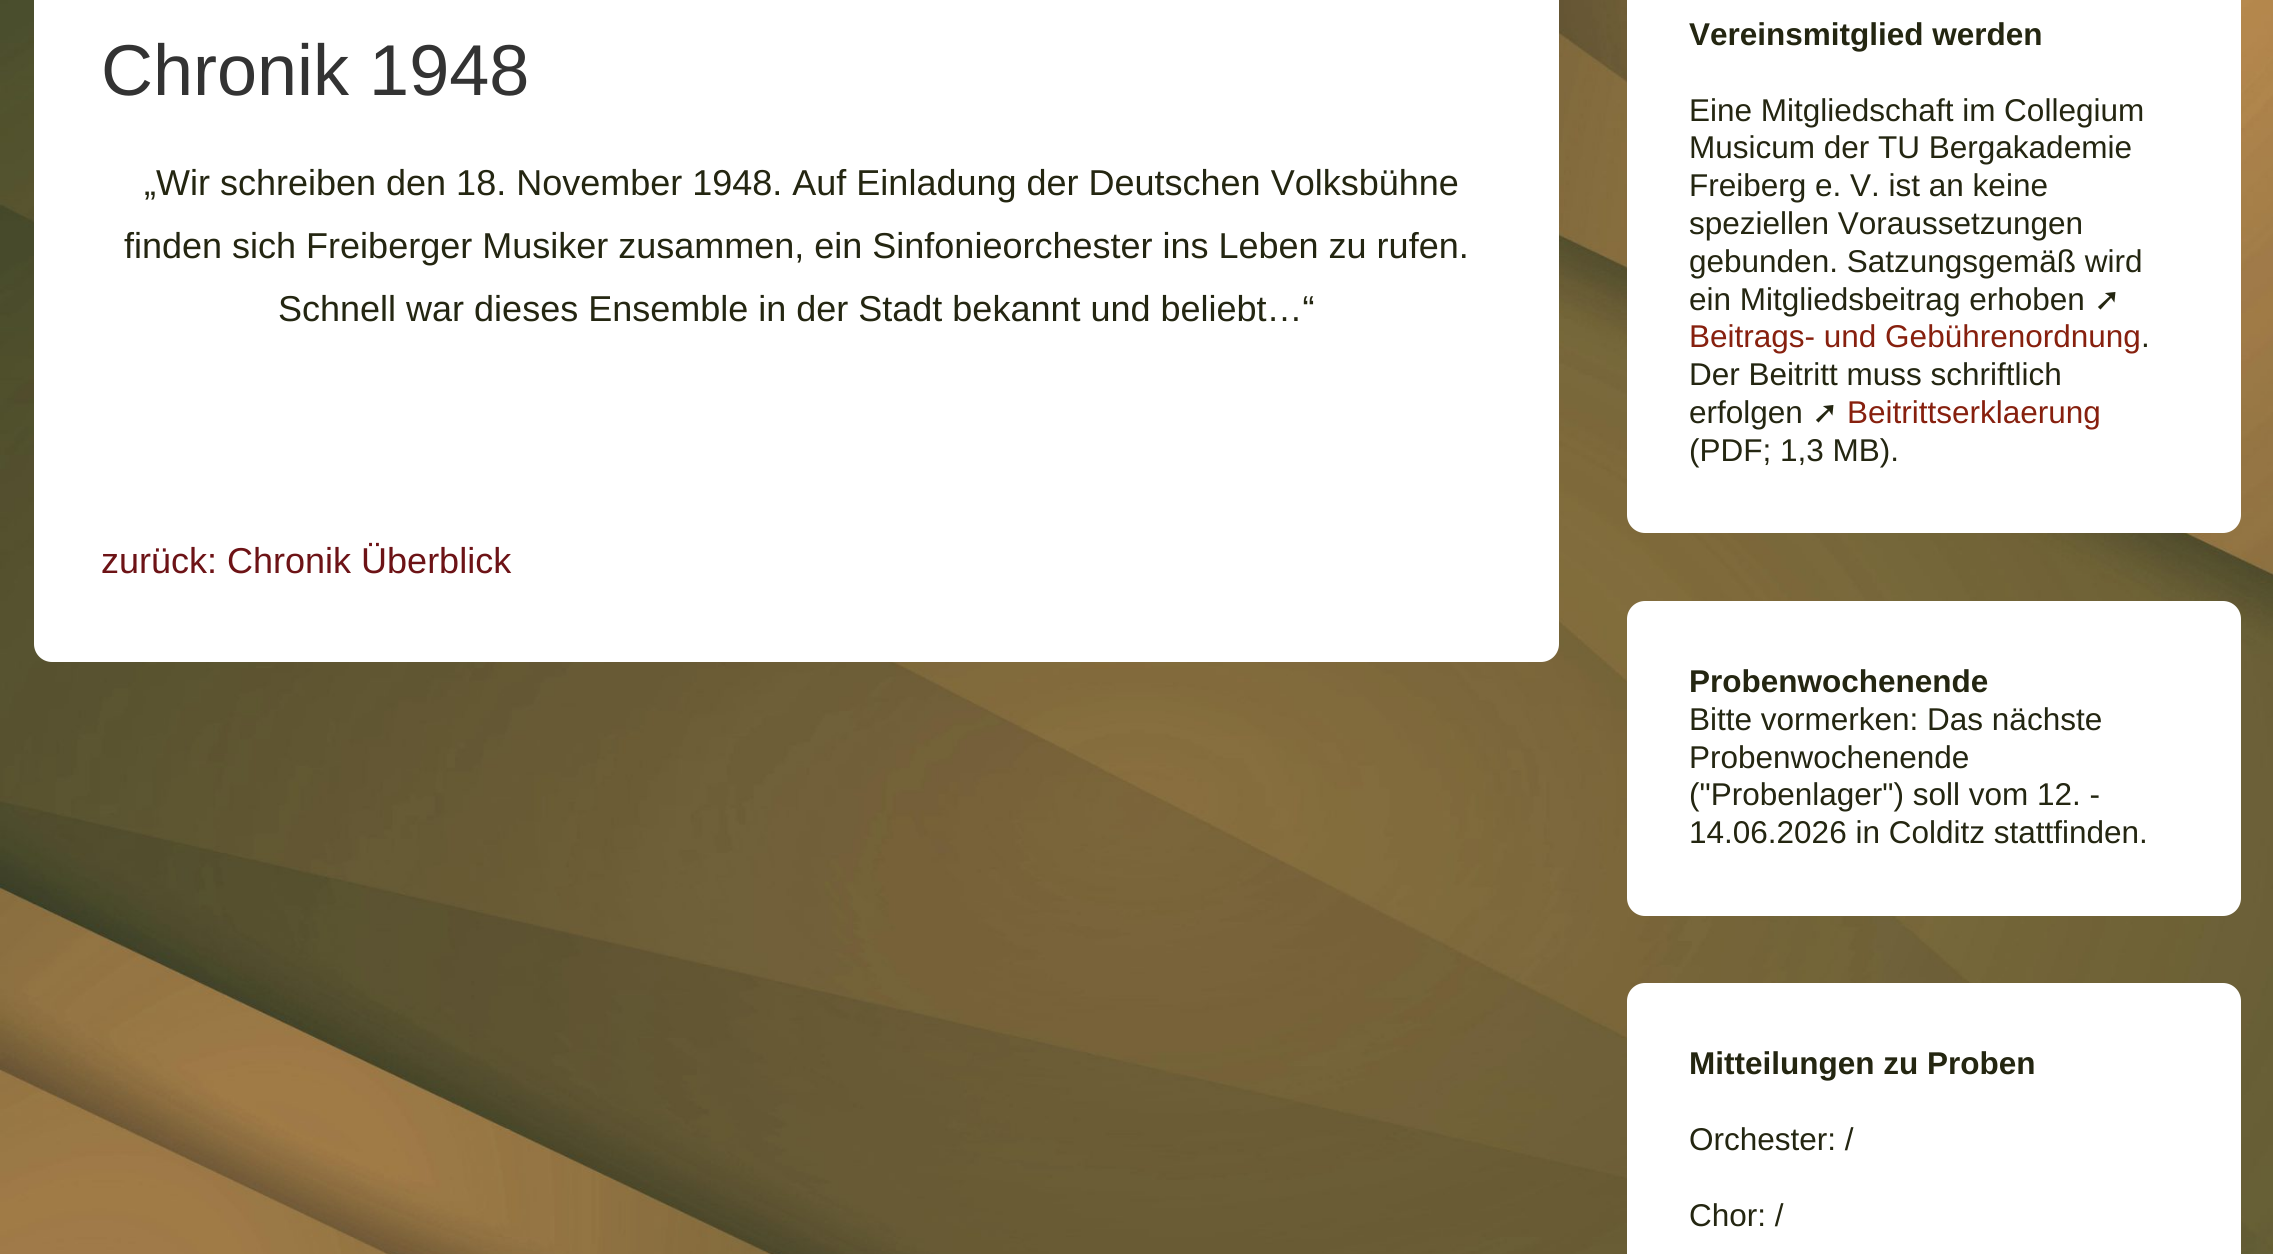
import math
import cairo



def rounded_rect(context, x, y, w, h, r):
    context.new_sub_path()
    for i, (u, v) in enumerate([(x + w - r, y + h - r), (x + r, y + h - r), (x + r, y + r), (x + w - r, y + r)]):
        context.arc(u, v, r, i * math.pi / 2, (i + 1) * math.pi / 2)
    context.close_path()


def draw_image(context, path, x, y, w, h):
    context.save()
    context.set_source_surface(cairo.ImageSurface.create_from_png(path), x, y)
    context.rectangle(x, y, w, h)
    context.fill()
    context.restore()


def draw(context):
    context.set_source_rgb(1, 1, 1)
    context.paint()
    draw_image(context, "images/1.png", 0, 0, 2273, 1254)
    context.set_source_rgb(1, 1, 1)
    rounded_rect(context, 34, -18, 1525, 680, 18)
    context.fill()
    rounded_rect(context, 1627, -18, 614, 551, 18)
    context.fill()
    rounded_rect(context, 1627, 601, 614, 315, 18)
    context.fill()
    rounded_rect(context, 1627, 983, 614, 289, 18)
    context.fill()
    context.select_font_face("Liberation Sans")
    context.set_font_size(72)
    context.set_source_rgb(51 / 255, 51 / 255, 51 / 255)
    context.move_to(101, 95)
    context.show_text("Chronik 1948")
    context.set_font_size(36)
    context.set_source_rgb(36 / 255, 38 / 255, 17 / 255)
    context.move_to(144, 195)
    context.show_text("„Wir schreiben den 18. November 1948. Auf Einladung der Deutschen Volksbühne")
    context.move_to(124, 258)
    context.show_text("finden sich Freiberger Musiker zusammen, ein Sinfonieorchester ins Leben zu rufen.")
    context.move_to(278, 321)
    context.show_text("Schnell war dieses Ensemble in der Stadt bekannt und beliebt…“")
    context.set_source_rgb(109 / 255, 19 / 255, 22 / 255)
    context.move_to(101, 573)
    context.show_text("zurück: Chronik Überblick")
    context.select_font_face("Liberation Sans", cairo.FontSlant.NORMAL, cairo.FontWeight.BOLD)
    context.set_font_size(31.5)
    context.set_source_rgb(36 / 255, 38 / 255, 17 / 255)
    context.move_to(1689, 45)
    context.show_text("Vereinsmitglied werden")
    context.select_font_face("Liberation Sans")
    context.move_to(1689, 121)
    context.show_text("Eine Mitgliedschaft im Collegium")
    context.move_to(1689, 158)
    context.show_text("Musicum der TU Bergakademie")
    context.move_to(1689, 196)
    context.show_text("Freiberg e. V. ist an keine")
    context.move_to(1689, 234)
    context.show_text("speziellen Voraussetzungen")
    context.move_to(1689, 272)
    context.show_text("gebunden. Satzungsgemäß wird")
    context.move_to(1689, 310)
    context.show_text("ein Mitgliedsbeitrag erhoben")
    context.select_font_face("DejaVu Sans")
    context.move_to(2094, 310)
    context.show_text("➚")
    context.select_font_face("Liberation Sans")
    context.set_source_rgb(135 / 255, 32 / 255, 14 / 255)
    context.move_to(1689, 347)
    context.show_text("Beitrags- und Gebührenordnung")
    context.set_source_rgb(36 / 255, 38 / 255, 17 / 255)
    context.move_to(2141, 347)
    context.show_text(".")
    context.move_to(1689, 385)
    context.show_text("Der Beitritt muss schriftlich")
    context.move_to(1689, 423)
    context.show_text("erfolgen")
    context.select_font_face("DejaVu Sans")
    context.move_to(1812, 423)
    context.show_text("➚")
    context.select_font_face("Liberation Sans")
    context.set_source_rgb(135 / 255, 32 / 255, 14 / 255)
    context.move_to(1847, 423)
    context.show_text("Beitrittserklaerung")
    context.set_source_rgb(36 / 255, 38 / 255, 17 / 255)
    context.move_to(1689, 461)
    context.show_text("(PDF; 1,3 MB).")
    context.select_font_face("Liberation Sans", cairo.FontSlant.NORMAL, cairo.FontWeight.BOLD)
    context.move_to(1689, 692)
    context.show_text("Probenwochenende")
    context.select_font_face("Liberation Sans")
    context.move_to(1689, 730)
    context.show_text("Bitte vormerken: Das nächste")
    context.move_to(1689, 768)
    context.show_text("Probenwochenende")
    context.move_to(1689, 805)
    context.show_text("(\"Probenlager\") soll vom 12. -")
    context.move_to(1689, 843)
    context.show_text("14.06.2026 in Colditz stattfinden.")
    context.select_font_face("Liberation Sans", cairo.FontSlant.NORMAL, cairo.FontWeight.BOLD)
    context.move_to(1689, 1074)
    context.show_text("Mitteilungen zu Proben")
    context.select_font_face("Liberation Sans")
    context.move_to(1689, 1150)
    context.show_text("Orchester: /")
    context.move_to(1689, 1226)
    context.show_text("Chor: /")


surface = cairo.ImageSurface(cairo.Format.RGB24, 2273, 1254)
context = cairo.Context(surface)
options = cairo.FontOptions()
options.set_hint_metrics(cairo.HintMetrics.OFF)
options.set_hint_style(cairo.HintStyle.NONE)
context.set_font_options(options)
context.set_miter_limit(4)
draw(context)
surface.write_to_png("out.png")
